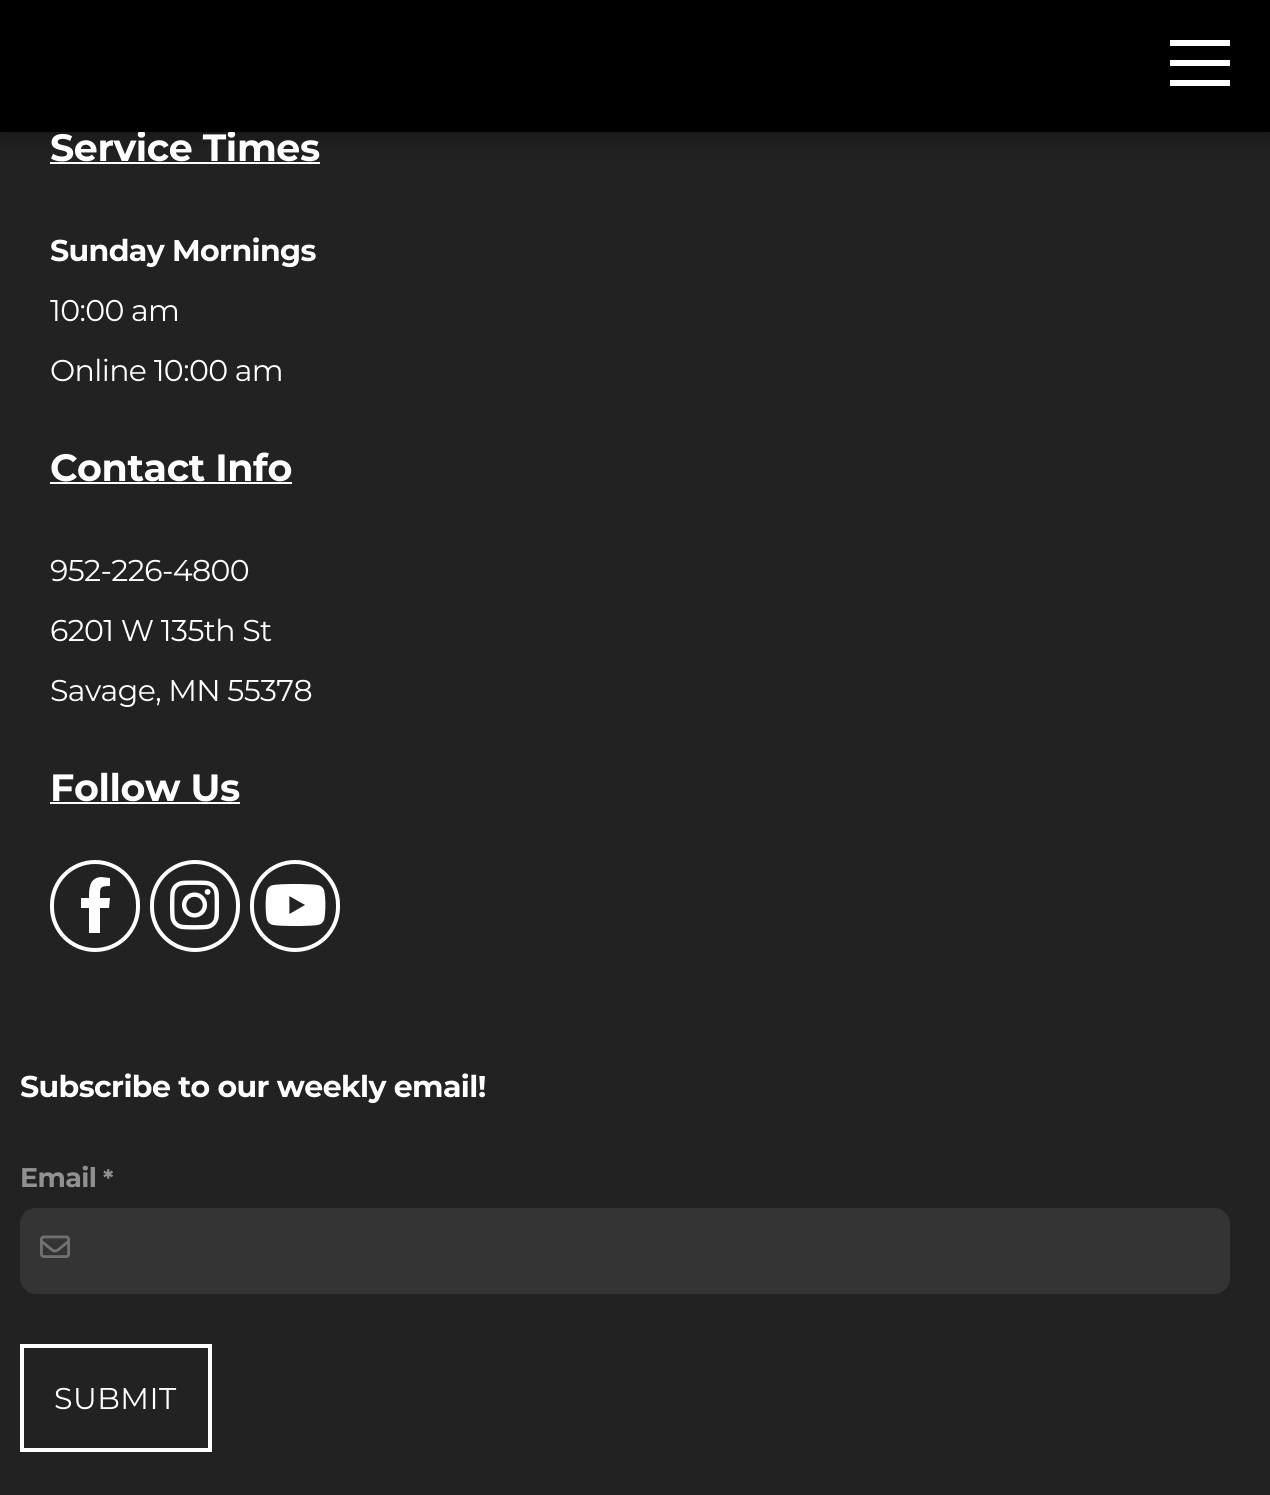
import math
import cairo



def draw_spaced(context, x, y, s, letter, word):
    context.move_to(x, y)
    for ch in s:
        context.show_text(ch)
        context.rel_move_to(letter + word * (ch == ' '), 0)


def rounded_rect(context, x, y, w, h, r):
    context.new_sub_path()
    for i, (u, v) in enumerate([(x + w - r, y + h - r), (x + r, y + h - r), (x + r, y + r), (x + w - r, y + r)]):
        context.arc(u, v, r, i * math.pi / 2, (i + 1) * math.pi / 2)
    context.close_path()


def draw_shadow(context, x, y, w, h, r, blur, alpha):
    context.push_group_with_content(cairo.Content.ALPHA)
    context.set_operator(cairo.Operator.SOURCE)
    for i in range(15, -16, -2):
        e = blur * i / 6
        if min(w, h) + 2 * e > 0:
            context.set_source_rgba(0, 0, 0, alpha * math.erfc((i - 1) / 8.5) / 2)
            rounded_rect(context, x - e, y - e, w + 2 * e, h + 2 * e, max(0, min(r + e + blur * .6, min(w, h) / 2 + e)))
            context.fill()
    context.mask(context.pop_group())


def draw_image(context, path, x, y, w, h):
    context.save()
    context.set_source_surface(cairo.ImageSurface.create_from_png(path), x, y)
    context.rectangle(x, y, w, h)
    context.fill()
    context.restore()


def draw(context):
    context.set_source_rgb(34 / 255, 34 / 255, 34 / 255)
    context.paint()
    context.set_source_rgb(1, 1, 1)
    context.rectangle(50, 162, 270, 2)
    context.fill()
    context.set_source_rgb(0, 0, 0)
    draw_shadow(context, 0, 0, 1270, 132, 0, 15, 0.5)
    context.set_source_rgb(1, 1, 1)
    context.rectangle(50, 482, 242, 2)
    context.fill()
    context.rectangle(50, 802, 190, 2)
    context.fill()
    rounded_rect(context, 52, 862, 86, 88, 43)
    context.set_line_width(4)
    context.stroke()
    context.new_path()
    context.move_to(109, 908)
    context.line_to(110, 898)
    context.line_to(100, 898)
    context.curve_to(100, 888, 99, 886, 110, 886)
    context.line_to(110, 878)
    context.line_to(101, 877)
    context.curve_to(89, 878, 89, 889, 89, 898)
    context.line_to(81, 898)
    context.line_to(81, 908)
    context.line_to(89, 908)
    context.line_to(89, 933)
    context.line_to(100, 933)
    context.line_to(100, 908)
    context.close_path()
    context.fill()
    rounded_rect(context, 152, 862, 86, 88, 43)
    context.stroke()
    draw_image(context, "images/1.png", 170, 880, 49, 50)
    rounded_rect(context, 252, 862, 86, 88, 43)
    context.stroke()
    draw_image(context, "images/2.png", 265, 884, 61, 42)
    context.set_source_rgb(52 / 255, 52 / 255, 52 / 255)
    rounded_rect(context, 20, 1208, 1210, 86, 16)
    context.fill()
    draw_image(context, "images/3.png", 40, 1235, 30, 23)
    context.rectangle(22, 1346, 188, 104)
    context.set_source_rgb(1, 1, 1)
    context.stroke()
    context.select_font_face("Montserrat", cairo.FontSlant.NORMAL, cairo.FontWeight.BOLD)
    context.set_font_size(38)
    draw_spaced(context, 50, 161, "Service Times", -0.4, 0)
    context.set_source_rgb(0, 0, 0)
    context.rectangle(0, 0, 1270, 132)
    context.fill()
    context.set_source_rgb(1, 1, 1)
    context.rectangle(1170, 80, 60, 6)
    context.fill()
    context.rectangle(1170, 60, 60, 6)
    context.fill()
    context.rectangle(1170, 40, 60, 6)
    context.fill()
    context.set_font_size(30)
    draw_spaced(context, 50, 261, "Sunday Mornings", -0.6, 0)
    context.select_font_face("Montserrat")
    draw_spaced(context, 50, 321, "10:00 am", -0.6, 0)
    draw_spaced(context, 50, 381, "Online 10:00 am", -0.6, 0)
    context.select_font_face("Montserrat", cairo.FontSlant.NORMAL, cairo.FontWeight.BOLD)
    context.set_font_size(38)
    draw_spaced(context, 50, 481, "Contact Info", -0.4, 0)
    context.select_font_face("Montserrat")
    context.set_font_size(30)
    draw_spaced(context, 50, 581, "952-226-4800", -0.6, 0)
    draw_spaced(context, 50, 641, "6201 W 135th St", -0.6, 0)
    draw_spaced(context, 50, 701, "Savage, MN 55378", -0.6, 0)
    context.select_font_face("Montserrat", cairo.FontSlant.NORMAL, cairo.FontWeight.BOLD)
    context.set_font_size(38)
    draw_spaced(context, 50, 801, "Follow Us", -0.4, 0)
    context.set_font_size(30)
    draw_spaced(context, 20, 1097, "Subscribe to our weekly email!", -0.6, 0)
    context.set_font_size(27)
    context.set_source_rgb(145 / 255, 145 / 255, 145 / 255)
    draw_spaced(context, 20, 1187, "Email", -0.6, 0)
    context.set_font_size(24)
    draw_spaced(context, 103, 1187, "*", -0.6, 0)
    context.select_font_face("Montserrat")
    context.set_font_size(30)
    context.set_source_rgb(1, 1, 1)
    draw_spaced(context, 54, 1409, "SUBMIT", 0.5, 0)


surface = cairo.ImageSurface(cairo.Format.RGB24, 1270, 1495)
context = cairo.Context(surface)
options = cairo.FontOptions()
options.set_hint_metrics(cairo.HintMetrics.OFF)
options.set_hint_style(cairo.HintStyle.NONE)
context.set_font_options(options)
context.set_miter_limit(4)
draw(context)
surface.write_to_png("out.png")
